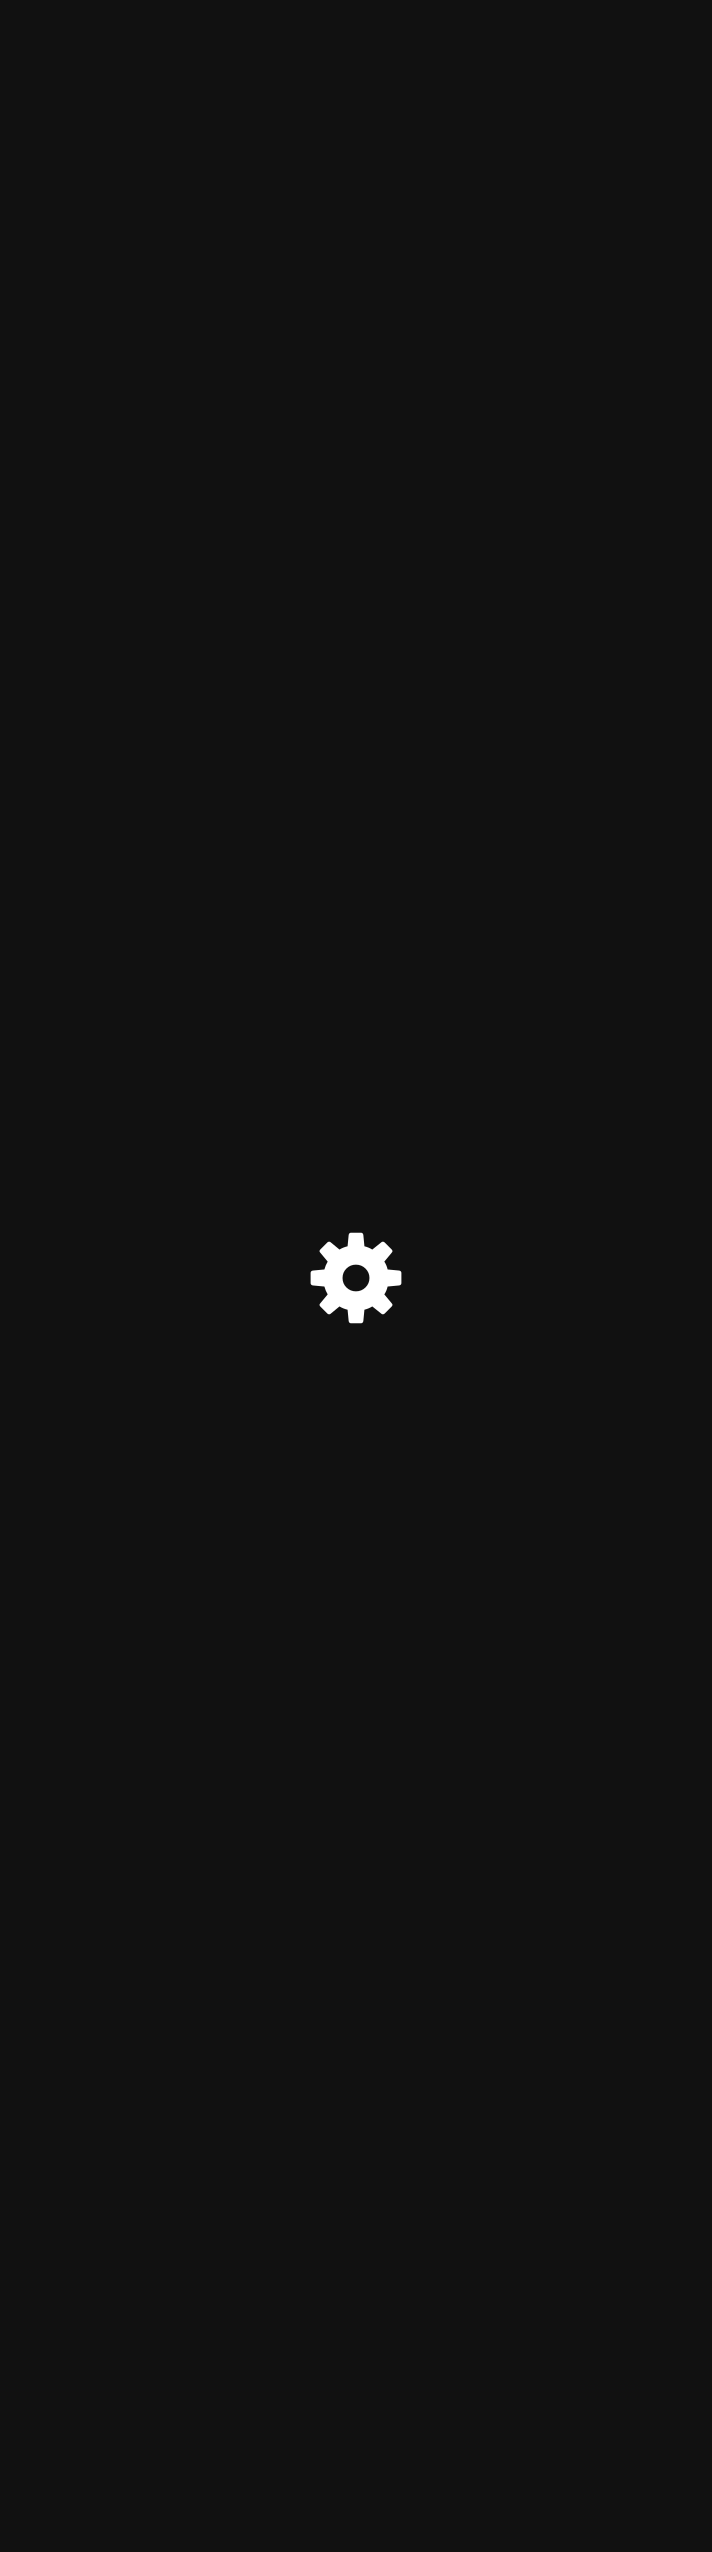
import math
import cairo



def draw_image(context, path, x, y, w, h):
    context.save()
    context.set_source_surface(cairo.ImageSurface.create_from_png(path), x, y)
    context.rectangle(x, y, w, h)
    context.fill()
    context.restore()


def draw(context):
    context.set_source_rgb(17 / 255, 17 / 255, 17 / 255)
    context.paint()
    draw_image(context, "images/1.png", 310, 1232, 92, 92)


surface = cairo.ImageSurface(cairo.Format.RGB24, 712, 2552)
context = cairo.Context(surface)
options = cairo.FontOptions()
options.set_hint_metrics(cairo.HintMetrics.OFF)
options.set_hint_style(cairo.HintStyle.NONE)
context.set_font_options(options)
context.set_miter_limit(4)
draw(context)
surface.write_to_png("out.png")
